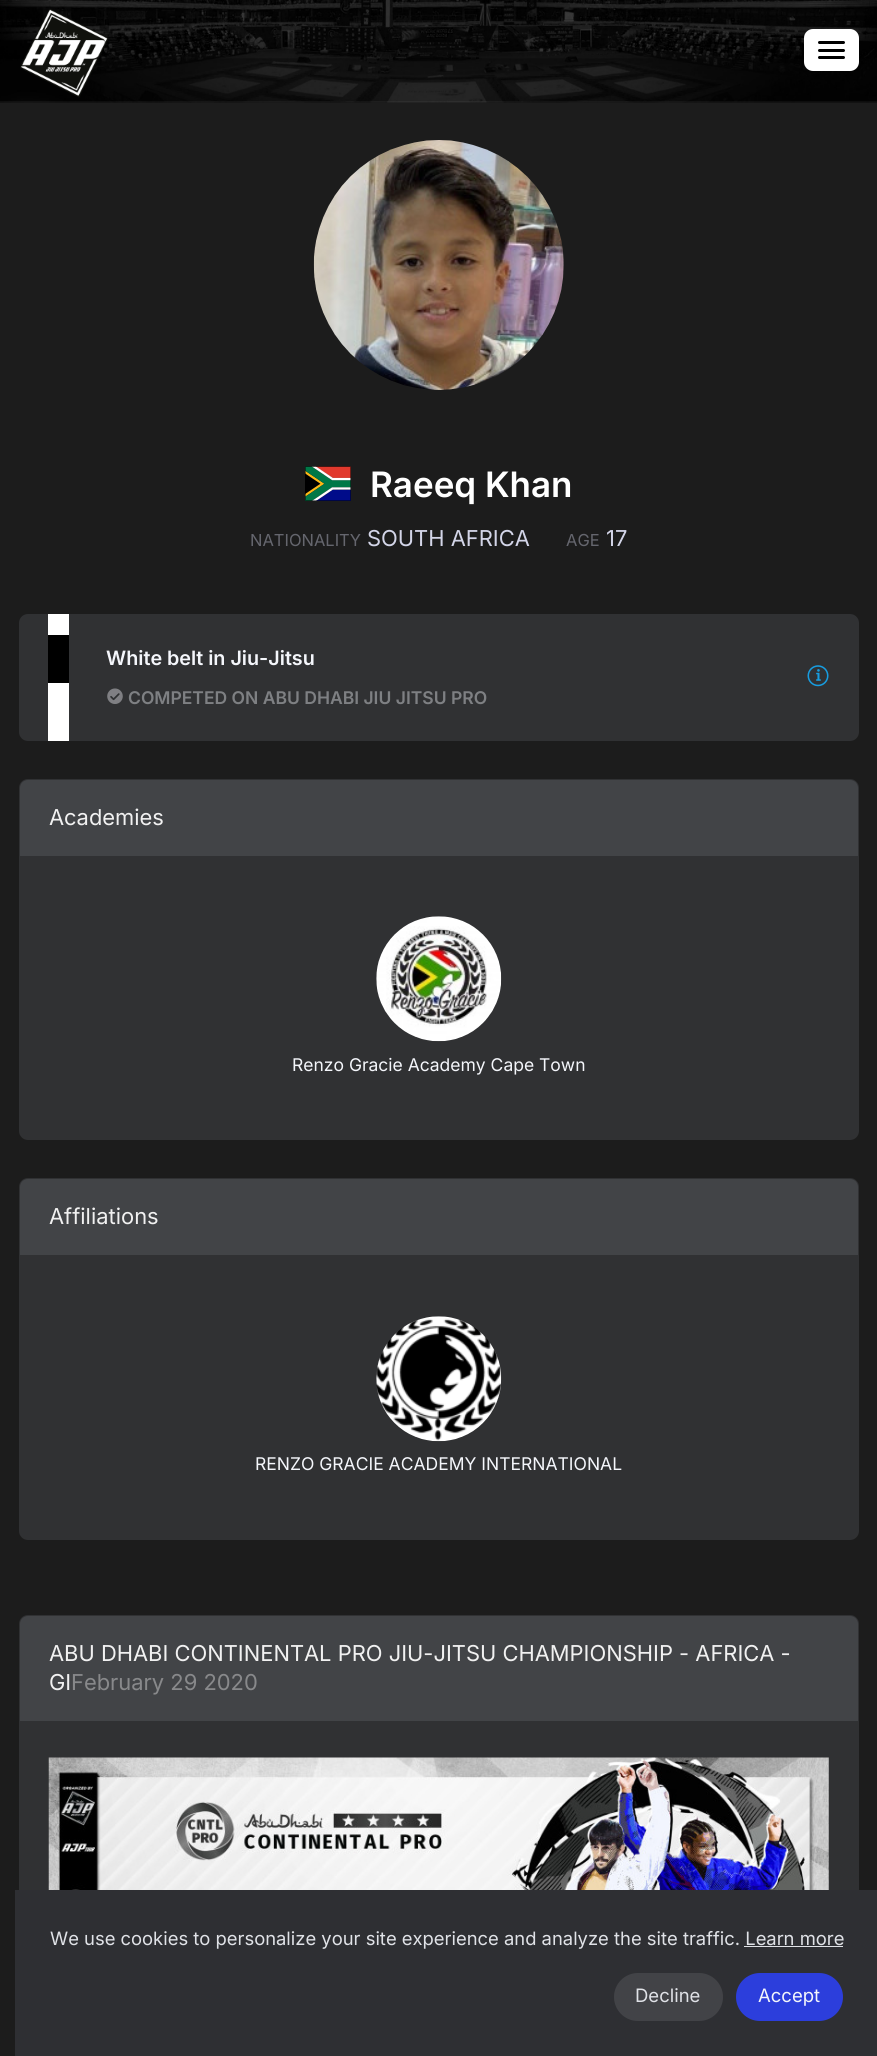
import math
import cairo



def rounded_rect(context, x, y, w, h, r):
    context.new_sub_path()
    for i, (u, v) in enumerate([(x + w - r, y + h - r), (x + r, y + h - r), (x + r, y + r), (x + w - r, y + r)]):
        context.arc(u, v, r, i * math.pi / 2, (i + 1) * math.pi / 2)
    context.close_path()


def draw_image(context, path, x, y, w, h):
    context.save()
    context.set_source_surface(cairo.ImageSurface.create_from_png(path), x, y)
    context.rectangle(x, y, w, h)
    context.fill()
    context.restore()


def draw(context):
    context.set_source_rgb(28 / 255, 28 / 255, 28 / 255)
    context.paint()
    context.set_source_rgb(35 / 255, 35 / 255, 35 / 255)
    context.rectangle(0, 102, 877, 1)
    context.fill()
    draw_image(context, "images/1.png", 0, 0, 877, 103)
    context.set_source_rgba(225 / 255, 225 / 255, 225 / 255, 0.05)
    context.rectangle(0, 101, 877, 1)
    context.fill()
    draw_image(context, "images/2.png", 20, 9, 88, 89)
    context.set_source_rgb(1, 1, 1)
    rounded_rect(context, 804, 29, 55, 42, 9)
    context.fill()
    context.set_source_rgb(0, 0, 0)
    rounded_rect(context, 818, 41, 27, 3, 1.5)
    context.fill()
    rounded_rect(context, 818, 49, 27, 3, 1.5)
    context.fill()
    rounded_rect(context, 818, 56, 27, 3, 1.5)
    context.fill()
    draw_image(context, "images/3.png", 313, 140, 251, 250)
    draw_image(context, "images/4.png", 305, 466, 46, 35)
    context.rectangle(305.5, 466.5, 45, 34)
    context.set_source_rgba(0, 0, 0, 0.5)
    context.set_line_width(1)
    context.stroke()
    context.set_source_rgb(48 / 255, 49 / 255, 51 / 255)
    rounded_rect(context, 19, 614, 840, 127, 9)
    context.fill()
    context.set_source_rgb(1, 1, 1)
    context.rectangle(48, 614, 21, 127)
    context.fill()
    context.set_source_rgb(0, 0, 0)
    context.rectangle(48, 635, 21, 48)
    context.fill()
    draw_image(context, "images/5.png", 107, 688, 16, 16)
    draw_image(context, "images/6.png", 807, 665, 22, 22)
    context.set_source_rgb(48 / 255, 49 / 255, 51 / 255)
    rounded_rect(context, 19, 779, 840, 361, 9)
    context.fill()
    context.set_source_rgb(66 / 255, 68 / 255, 71 / 255)
    context.new_path()
    context.move_to(28, 780)
    context.line_to(850, 780)
    context.curve_to(854.5, 780, 858, 783.5, 858, 788)
    context.line_to(858, 856)
    context.line_to(20, 856)
    context.line_to(20, 788)
    context.curve_to(20, 783.5, 23.5, 780, 28, 780)
    context.close_path()
    context.fill()
    draw_image(context, "images/7.png", 376, 916, 126, 126)
    context.set_source_rgb(48 / 255, 49 / 255, 51 / 255)
    rounded_rect(context, 19, 1178, 840, 362, 9)
    context.fill()
    context.set_source_rgb(66 / 255, 68 / 255, 71 / 255)
    context.new_path()
    context.move_to(28, 1179)
    context.line_to(850, 1179)
    context.curve_to(854.5, 1179, 858, 1182.5, 858, 1187)
    context.line_to(858, 1255)
    context.line_to(20, 1255)
    context.line_to(20, 1187)
    context.curve_to(20, 1182.5, 23.5, 1179, 28, 1179)
    context.close_path()
    context.fill()
    draw_image(context, "images/8.png", 376, 1316, 126, 126)
    context.set_source_rgb(48 / 255, 49 / 255, 51 / 255)
    rounded_rect(context, 19, 1615, 840, 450, 9)
    context.fill()
    context.set_source_rgb(66 / 255, 68 / 255, 71 / 255)
    context.new_path()
    context.move_to(28, 1616)
    context.line_to(850, 1616)
    context.curve_to(854.5, 1616, 858, 1619.5, 858, 1624)
    context.line_to(858, 1721)
    context.line_to(20, 1721)
    context.line_to(20, 1624)
    context.curve_to(20, 1619.5, 23.5, 1616, 28, 1616)
    context.close_path()
    context.fill()
    draw_image(context, "images/9.png", 48, 1757, 781, 133)
    context.set_source_rgb(46 / 255, 47 / 255, 51 / 255)
    context.rectangle(15, 1890, 862, 166)
    context.fill()
    context.set_source_rgb(224 / 255, 226 / 255, 231 / 255)
    context.rectangle(744, 1946, 99, 1)
    context.fill()
    context.set_source_rgb(66 / 255, 67 / 255, 71 / 255)
    rounded_rect(context, 614, 1973, 109, 48, 24)
    context.fill()
    context.set_source_rgb(44 / 255, 62 / 255, 220 / 255)
    rounded_rect(context, 736, 1973, 107, 48, 24)
    context.fill()
    context.select_font_face("Inter SemiBold")
    context.set_font_size(35)
    context.set_source_rgb(1, 1, 1)
    context.move_to(370, 497)
    context.show_text("Raeeq Khan")
    context.select_font_face("Inter")
    context.set_font_size(16.5)
    context.set_source_rgb(101 / 255, 102 / 255, 110 / 255)
    context.move_to(250, 546)
    context.show_text("NATIONALITY")
    context.set_font_size(21.9)
    context.set_source_rgb(211 / 255, 213 / 255, 232 / 255)
    context.move_to(367, 546)
    context.show_text("SOUTH AFRICA")
    context.set_font_size(16.5)
    context.set_source_rgb(101 / 255, 102 / 255, 110 / 255)
    context.move_to(566, 546)
    context.show_text("AGE")
    context.set_font_size(21.9)
    context.set_source_rgb(211 / 255, 213 / 255, 232 / 255)
    context.move_to(606, 546)
    context.show_text("17")
    context.select_font_face("Inter SemiBold")
    context.set_font_size(19.75)
    context.set_source_rgb(244 / 255, 246 / 255, 251 / 255)
    context.move_to(106, 665)
    context.show_text("White belt in Jiu-Jitsu")
    context.set_font_size(17.5)
    context.set_source_rgb(126 / 255, 128 / 255, 131 / 255)
    context.move_to(128, 704)
    context.show_text("COMPETED ON ABU DHABI JIU JITSU PRO")
    context.select_font_face("Inter")
    context.set_font_size(21.9)
    context.set_source_rgb(241 / 255, 241 / 255, 241 / 255)
    context.move_to(49, 825)
    context.show_text("Academies")
    context.set_font_size(17.5)
    context.set_source_rgb(244 / 255, 246 / 255, 251 / 255)
    context.move_to(292, 1071)
    context.show_text("Renzo Gracie Academy Cape Town")
    context.set_font_size(21.9)
    context.set_source_rgb(241 / 255, 241 / 255, 241 / 255)
    context.move_to(49, 1224)
    context.show_text("Affiliations")
    context.set_font_size(17.5)
    context.set_source_rgb(244 / 255, 246 / 255, 251 / 255)
    context.move_to(255, 1470)
    context.show_text("RENZO GRACIE ACADEMY INTERNATIONAL")
    context.set_font_size(21.9)
    context.set_source_rgb(241 / 255, 241 / 255, 241 / 255)
    context.move_to(49, 1661)
    context.show_text("ABU DHABI CONTINENTAL PRO JIU-JITSU CHAMPIONSHIP - AFRICA -")
    context.move_to(49, 1690)
    context.show_text("GI")
    context.set_source_rgb(136 / 255, 137 / 255, 139 / 255)
    context.move_to(71, 1690)
    context.show_text("February 29 2020")
    context.set_font_size(18.4)
    context.set_source_rgb(224 / 255, 226 / 255, 231 / 255)
    context.move_to(50, 1945)
    context.show_text("We use cookies to personalize your site experience and analyze the site traffic. Learn more")
    context.set_font_size(18.5)
    context.move_to(635, 2002)
    context.show_text("Decline")
    context.set_source_rgb(244 / 255, 246 / 255, 251 / 255)
    context.move_to(758, 2002)
    context.show_text("Accept")


surface = cairo.ImageSurface(cairo.Format.RGB24, 877, 2056)
context = cairo.Context(surface)
options = cairo.FontOptions()
options.set_hint_metrics(cairo.HintMetrics.OFF)
options.set_hint_style(cairo.HintStyle.NONE)
context.set_font_options(options)
context.set_miter_limit(4)
draw(context)
surface.write_to_png("out.png")
